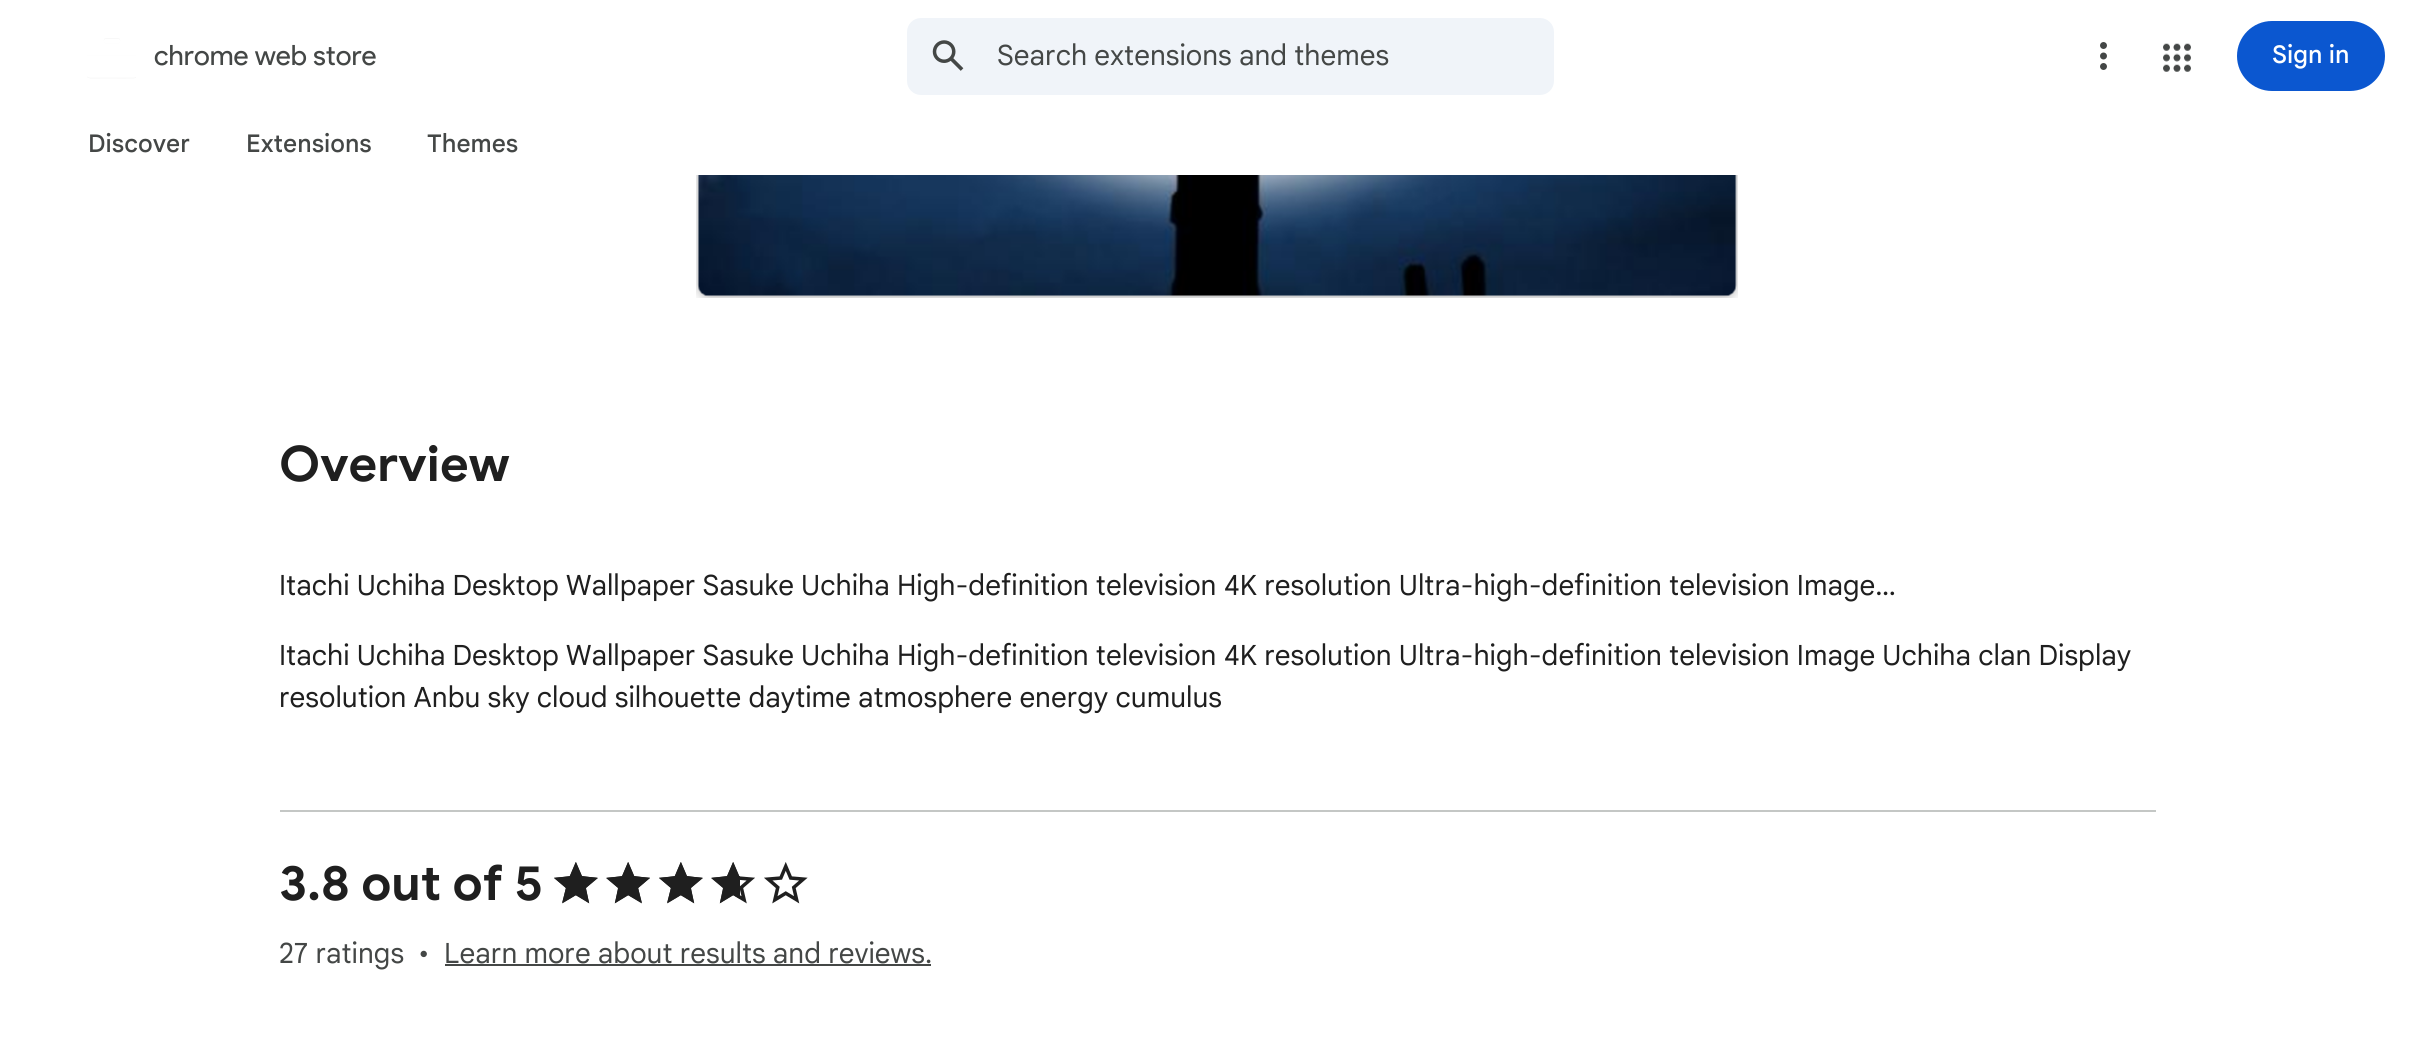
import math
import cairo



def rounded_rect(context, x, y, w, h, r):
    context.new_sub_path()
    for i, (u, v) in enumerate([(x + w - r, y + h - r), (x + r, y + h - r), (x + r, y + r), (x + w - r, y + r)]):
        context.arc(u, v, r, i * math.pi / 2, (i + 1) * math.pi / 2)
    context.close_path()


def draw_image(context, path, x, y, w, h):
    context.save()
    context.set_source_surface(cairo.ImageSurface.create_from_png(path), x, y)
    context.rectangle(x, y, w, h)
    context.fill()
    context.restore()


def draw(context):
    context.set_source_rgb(1, 1, 1)
    context.paint()
    draw_image(context, "images/1.png", 87, 38, 49, 41)
    context.set_source_rgb(240 / 255, 244 / 255, 249 / 255)
    rounded_rect(context, 907, 18, 647, 77, 14)
    context.fill()
    draw_image(context, "images/2.png", 932, 40, 32, 31)
    draw_image(context, "images/3.png", 2100, 42, 7, 28)
    draw_image(context, "images/4.png", 2163, 43, 28, 29)
    context.set_source_rgb(11 / 255, 87 / 255, 208 / 255)
    rounded_rect(context, 2237, 21, 148, 70, 35)
    context.fill()
    draw_image(context, "images/5.png", 696, 175, 1042, 123)
    context.set_source_rgb(196 / 255, 199 / 255, 197 / 255)
    context.rectangle(280, 810, 1876, 2)
    context.fill()
    draw_image(context, "images/6.png", 554, 862, 44, 42)
    draw_image(context, "images/7.png", 606, 862, 44, 42)
    draw_image(context, "images/6.png", 659, 862, 44, 42)
    draw_image(context, "images/7.png", 711, 862, 44, 42)
    draw_image(context, "images/6.png", 764, 862, 44, 42)
    context.set_source_rgb(31 / 255, 31 / 255, 31 / 255)
    context.new_path()
    context.move_to(576, 895)
    context.line_to(589, 903)
    context.line_to(586, 888)
    context.line_to(598, 878)
    context.line_to(582, 876)
    context.line_to(576, 862)
    context.line_to(570, 876)
    context.line_to(554, 878)
    context.line_to(566, 888)
    context.line_to(562, 903)
    context.close_path()
    context.fill()
    context.new_path()
    context.move_to(628, 895)
    context.line_to(642, 903)
    context.line_to(638, 888)
    context.line_to(650, 878)
    context.line_to(634, 876)
    context.line_to(628, 862)
    context.line_to(622, 876)
    context.line_to(606, 878)
    context.line_to(618, 888)
    context.line_to(615, 903)
    context.close_path()
    context.fill()
    context.new_path()
    context.move_to(681, 895)
    context.line_to(694, 903)
    context.line_to(691, 888)
    context.line_to(703, 878)
    context.line_to(687, 876)
    context.line_to(681, 862)
    context.line_to(675, 876)
    context.line_to(659, 878)
    context.line_to(671, 888)
    context.line_to(667, 903)
    context.close_path()
    context.fill()
    context.save()
    context.rectangle(707, 858, 33, 52)
    context.clip()
    context.new_path()
    context.move_to(733, 895)
    context.line_to(747, 903)
    context.line_to(743, 888)
    context.line_to(755, 878)
    context.line_to(739, 876)
    context.line_to(733, 862)
    context.line_to(727, 876)
    context.line_to(711, 878)
    context.line_to(723, 888)
    context.line_to(720, 903)
    context.close_path()
    context.fill()
    context.restore()
    context.set_source_rgb(68 / 255, 71 / 255, 70 / 255)
    context.rectangle(445, 964, 486, 2)
    context.fill()
    context.select_font_face("Product Sans")
    context.set_font_size(28)
    context.move_to(154, 65)
    context.show_text("chrome web store")
    context.select_font_face("Google Sans")
    context.move_to(997, 65)
    context.show_text("Search extensions and themes")
    context.select_font_face("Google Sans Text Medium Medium")
    context.set_font_size(24.5)
    context.set_source_rgb(1, 1, 1)
    context.move_to(2272, 63)
    context.show_text("Sign in")
    context.set_source_rgb(68 / 255, 71 / 255, 70 / 255)
    context.move_to(88, 152)
    context.show_text("Discover")
    context.move_to(246, 152)
    context.show_text("Extensions")
    context.move_to(427, 152)
    context.show_text("Themes")
    context.select_font_face("Google Sans", cairo.FontSlant.NORMAL, cairo.FontWeight.BOLD)
    context.set_font_size(49)
    context.set_source_rgb(31 / 255, 31 / 255, 31 / 255)
    context.move_to(279, 481)
    context.show_text("Overview")
    context.select_font_face("Google Sans")
    context.set_font_size(28)
    context.move_to(279, 595)
    context.show_text("Itachi Uchiha Desktop Wallpaper Sasuke Uchiha High-definition television 4K resolution Ultra-high-definition television Image…")
    context.move_to(279, 665)
    context.show_text("Itachi Uchiha Desktop Wallpaper Sasuke Uchiha High-definition television 4K resolution Ultra-high-definition television Image Uchiha clan Display")
    context.move_to(279, 707)
    context.show_text("resolution Anbu sky cloud silhouette daytime atmosphere energy cumulus")
    context.select_font_face("Google Sans", cairo.FontSlant.NORMAL, cairo.FontWeight.BOLD)
    context.set_font_size(49)
    context.move_to(279, 900)
    context.show_text("3.8 out of 5")
    context.select_font_face("Google Sans")
    context.set_font_size(28)
    context.set_source_rgb(68 / 255, 71 / 255, 70 / 255)
    context.move_to(279, 963)
    context.show_text("27 ratings")
    context.move_to(418, 963)
    context.show_text("•")
    context.move_to(444, 963)
    context.show_text("Learn more about results and reviews.")


surface = cairo.ImageSurface(cairo.Format.RGB24, 2433, 1041)
context = cairo.Context(surface)
options = cairo.FontOptions()
options.set_hint_metrics(cairo.HintMetrics.OFF)
options.set_hint_style(cairo.HintStyle.NONE)
context.set_font_options(options)
context.set_miter_limit(4)
draw(context)
surface.write_to_png("out.png")
